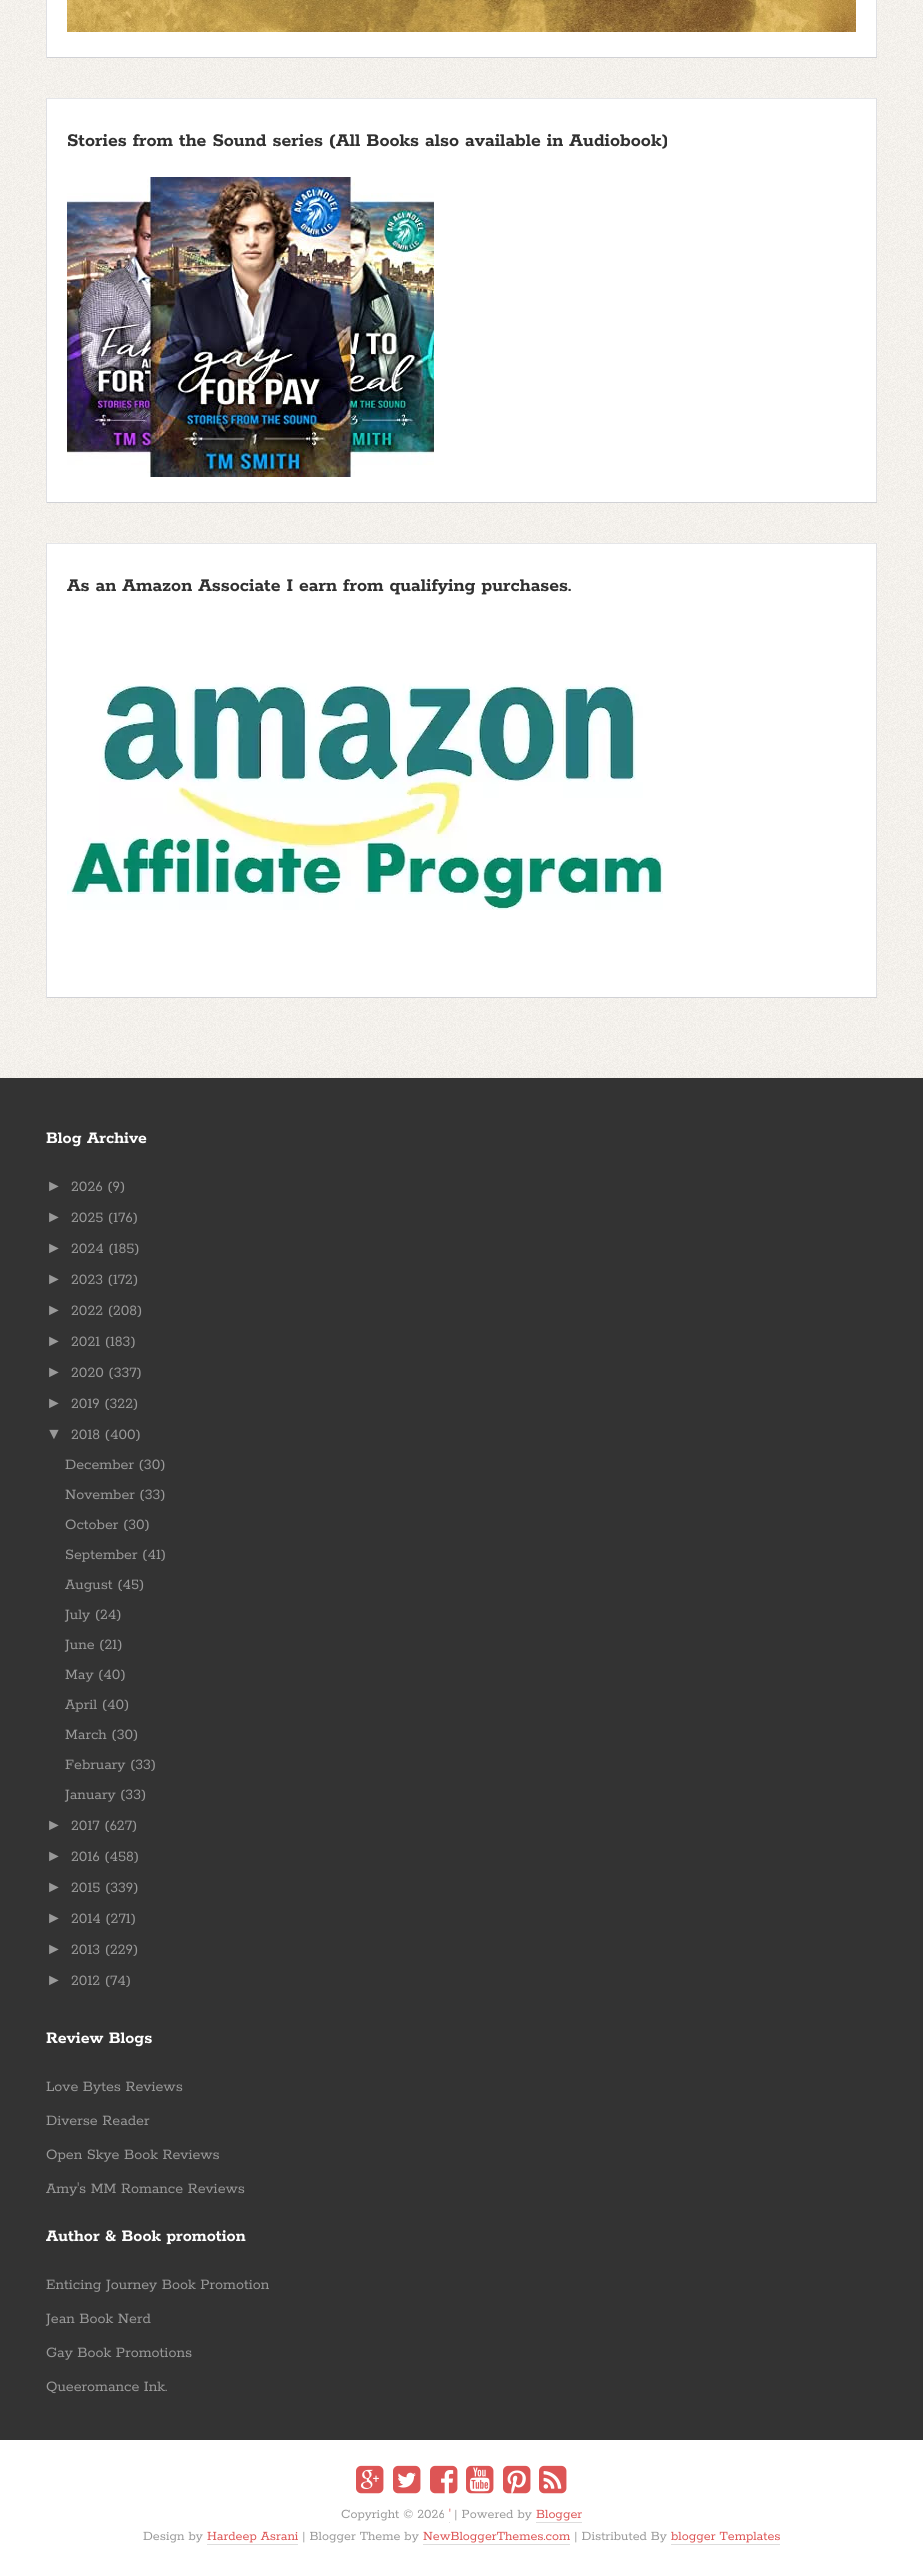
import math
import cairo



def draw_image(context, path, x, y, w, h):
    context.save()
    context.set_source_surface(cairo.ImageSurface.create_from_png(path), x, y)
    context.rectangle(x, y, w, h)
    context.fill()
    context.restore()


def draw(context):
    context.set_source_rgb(1, 1, 1)
    context.paint()
    draw_image(context, "images/1.png", 0, 0, 923, 1078)
    context.set_source_rgb(1, 1, 1)
    context.rectangle(47, 0, 829, 57)
    context.fill()
    context.set_source_rgb(223 / 255, 224 / 255, 228 / 255)
    context.rectangle(876, 0, 1, 58)
    context.fill()
    context.set_source_rgb(208 / 255, 209 / 255, 213 / 255)
    context.rectangle(46, 57, 831, 1)
    context.fill()
    context.set_source_rgb(223 / 255, 224 / 255, 228 / 255)
    context.rectangle(46, 0, 1, 58)
    context.fill()
    draw_image(context, "images/2.png", 67, 0, 789, 32)
    context.set_source_rgb(1, 1, 1)
    context.rectangle(47, 99, 829, 403)
    context.fill()
    context.set_source_rgb(229 / 255, 230 / 255, 233 / 255)
    context.rectangle(46, 98, 831, 1)
    context.fill()
    context.set_source_rgb(223 / 255, 224 / 255, 228 / 255)
    context.rectangle(876, 98, 1, 405)
    context.fill()
    context.set_source_rgb(208 / 255, 209 / 255, 213 / 255)
    context.rectangle(46, 502, 831, 1)
    context.fill()
    context.set_source_rgb(223 / 255, 224 / 255, 228 / 255)
    context.rectangle(46, 98, 1, 405)
    context.fill()
    draw_image(context, "images/3.png", 67, 177, 367, 300)
    context.set_source_rgb(1, 1, 1)
    context.rectangle(47, 544, 829, 453)
    context.fill()
    context.set_source_rgb(229 / 255, 230 / 255, 233 / 255)
    context.rectangle(46, 543, 831, 1)
    context.fill()
    context.set_source_rgb(223 / 255, 224 / 255, 228 / 255)
    context.rectangle(876, 543, 1, 455)
    context.fill()
    context.set_source_rgb(208 / 255, 209 / 255, 213 / 255)
    context.rectangle(46, 997, 831, 1)
    context.fill()
    context.set_source_rgb(223 / 255, 224 / 255, 228 / 255)
    context.rectangle(46, 543, 1, 455)
    context.fill()
    draw_image(context, "images/4.png", 67, 683, 596, 227)
    context.set_source_rgb(51 / 255, 51 / 255, 51 / 255)
    context.rectangle(0, 1078, 923, 1362)
    context.fill()
    draw_image(context, "images/5.png", 356, 2465, 28, 29)
    draw_image(context, "images/6.png", 393, 2465, 28, 29)
    draw_image(context, "images/7.png", 430, 2465, 28, 29)
    draw_image(context, "images/8.png", 466, 2465, 28, 29)
    draw_image(context, "images/9.png", 503, 2465, 28, 29)
    draw_image(context, "images/10.png", 539, 2465, 28, 29)
    context.set_source_rgb(221 / 255, 221 / 255, 221 / 255)
    context.rectangle(449, 2522, 1, 1)
    context.fill()
    context.rectangle(536, 2522, 46, 1)
    context.fill()
    context.rectangle(207, 2544, 91, 1)
    context.fill()
    context.rectangle(423, 2544, 147, 1)
    context.fill()
    context.rectangle(671, 2544, 109, 1)
    context.fill()
    context.select_font_face("Rokkitt", cairo.FontSlant.NORMAL, cairo.FontWeight.BOLD)
    context.set_font_size(20)
    context.set_source_rgb(49 / 255, 49 / 255, 49 / 255)
    context.move_to(67, 146)
    context.show_text("Stories from the Sound series (All Books also available in Audiobook)")
    context.move_to(67, 591)
    context.show_text("As an Amazon Associate I earn from qualifying purchases.")
    context.set_font_size(18)
    context.set_source_rgb(1, 1, 1)
    context.move_to(46, 1143)
    context.show_text("Blog Archive")
    context.select_font_face("Liberation Sans")
    context.set_font_size(16)
    context.set_source_rgb(153 / 255, 153 / 255, 153 / 255)
    context.move_to(46, 1191)
    context.show_text("►")
    context.select_font_face("Rokkitt")
    context.move_to(71, 1191)
    context.show_text("2026 (9)")
    context.select_font_face("Liberation Sans")
    context.move_to(46, 1222)
    context.show_text("►")
    context.select_font_face("Rokkitt")
    context.move_to(71, 1222)
    context.show_text("2025 (176)")
    context.select_font_face("Liberation Sans")
    context.move_to(46, 1253)
    context.show_text("►")
    context.select_font_face("Rokkitt")
    context.move_to(71, 1253)
    context.show_text("2024 (185)")
    context.select_font_face("Liberation Sans")
    context.move_to(46, 1284)
    context.show_text("►")
    context.select_font_face("Rokkitt")
    context.move_to(71, 1284)
    context.show_text("2023 (172)")
    context.select_font_face("Liberation Sans")
    context.move_to(46, 1315)
    context.show_text("►")
    context.select_font_face("Rokkitt")
    context.move_to(71, 1315)
    context.show_text("2022 (208)")
    context.select_font_face("Liberation Sans")
    context.move_to(46, 1346)
    context.show_text("►")
    context.select_font_face("Rokkitt")
    context.move_to(71, 1346)
    context.show_text("2021 (183)")
    context.select_font_face("Liberation Sans")
    context.move_to(46, 1377)
    context.show_text("►")
    context.select_font_face("Rokkitt")
    context.move_to(71, 1377)
    context.show_text("2020 (337)")
    context.select_font_face("Liberation Sans")
    context.move_to(46, 1408)
    context.show_text("►")
    context.select_font_face("Rokkitt")
    context.move_to(71, 1408)
    context.show_text("2019 (322)")
    context.select_font_face("Liberation Sans")
    context.move_to(46, 1439)
    context.show_text("▼")
    context.select_font_face("Rokkitt")
    context.move_to(71, 1439)
    context.show_text("2018 (400)")
    context.move_to(65, 1469)
    context.show_text("December (30)")
    context.move_to(65, 1499)
    context.show_text("November (33)")
    context.move_to(65, 1529)
    context.show_text("October (30)")
    context.move_to(65, 1559)
    context.show_text("September (41)")
    context.move_to(65, 1589)
    context.show_text("August (45)")
    context.move_to(65, 1619)
    context.show_text("July (24)")
    context.move_to(65, 1649)
    context.show_text("June (21)")
    context.move_to(65, 1679)
    context.show_text("May (40)")
    context.move_to(65, 1709)
    context.show_text("April (40)")
    context.move_to(65, 1739)
    context.show_text("March (30)")
    context.move_to(65, 1769)
    context.show_text("February (33)")
    context.move_to(65, 1799)
    context.show_text("January (33)")
    context.select_font_face("Liberation Sans")
    context.move_to(46, 1830)
    context.show_text("►")
    context.select_font_face("Rokkitt")
    context.move_to(71, 1830)
    context.show_text("2017 (627)")
    context.select_font_face("Liberation Sans")
    context.move_to(46, 1861)
    context.show_text("►")
    context.select_font_face("Rokkitt")
    context.move_to(71, 1861)
    context.show_text("2016 (458)")
    context.select_font_face("Liberation Sans")
    context.move_to(46, 1892)
    context.show_text("►")
    context.select_font_face("Rokkitt")
    context.move_to(71, 1892)
    context.show_text("2015 (339)")
    context.select_font_face("Liberation Sans")
    context.move_to(46, 1923)
    context.show_text("►")
    context.select_font_face("Rokkitt")
    context.move_to(71, 1923)
    context.show_text("2014 (271)")
    context.select_font_face("Liberation Sans")
    context.move_to(46, 1954)
    context.show_text("►")
    context.select_font_face("Rokkitt")
    context.move_to(71, 1954)
    context.show_text("2013 (229)")
    context.select_font_face("Liberation Sans")
    context.move_to(46, 1985)
    context.show_text("►")
    context.select_font_face("Rokkitt")
    context.move_to(71, 1985)
    context.show_text("2012 (74)")
    context.select_font_face("Rokkitt", cairo.FontSlant.NORMAL, cairo.FontWeight.BOLD)
    context.set_font_size(18)
    context.set_source_rgb(1, 1, 1)
    context.move_to(46, 2043)
    context.show_text("Review Blogs")
    context.select_font_face("Rokkitt")
    context.set_font_size(16)
    context.set_source_rgb(153 / 255, 153 / 255, 153 / 255)
    context.move_to(46, 2091)
    context.show_text("Love Bytes Reviews")
    context.move_to(46, 2125)
    context.show_text("Diverse Reader")
    context.move_to(46, 2159)
    context.show_text("Open Skye Book Reviews")
    context.move_to(46, 2193)
    context.show_text("Amy's MM Romance Reviews")
    context.select_font_face("Rokkitt", cairo.FontSlant.NORMAL, cairo.FontWeight.BOLD)
    context.set_font_size(18)
    context.set_source_rgb(1, 1, 1)
    context.move_to(46, 2241)
    context.show_text("Author & Book promotion")
    context.select_font_face("Rokkitt")
    context.set_font_size(16)
    context.set_source_rgb(153 / 255, 153 / 255, 153 / 255)
    context.move_to(46, 2289)
    context.show_text("Enticing Journey Book Promotion")
    context.move_to(46, 2323)
    context.show_text("Jean Book Nerd")
    context.move_to(46, 2357)
    context.show_text("Gay Book Promotions")
    context.move_to(46, 2391)
    context.show_text("Queeromance Ink.")
    context.set_font_size(14)
    context.move_to(341, 2518)
    context.show_text("Copyright © 2026")
    context.set_source_rgb(221 / 255, 85 / 255, 85 / 255)
    context.move_to(449, 2518)
    context.show_text("'")
    context.set_source_rgb(153 / 255, 153 / 255, 153 / 255)
    context.move_to(454, 2518)
    context.show_text("| Powered by")
    context.set_source_rgb(221 / 255, 85 / 255, 85 / 255)
    context.move_to(536, 2518)
    context.show_text("Blogger")
    context.set_source_rgb(153 / 255, 153 / 255, 153 / 255)
    context.move_to(143, 2540)
    context.show_text("Design by")
    context.set_source_rgb(221 / 255, 85 / 255, 85 / 255)
    context.move_to(207, 2540)
    context.show_text("Hardeep Asrani")
    context.set_source_rgb(153 / 255, 153 / 255, 153 / 255)
    context.move_to(302, 2540)
    context.show_text("| Blogger Theme by")
    context.set_source_rgb(221 / 255, 85 / 255, 85 / 255)
    context.move_to(423, 2540)
    context.show_text("NewBloggerThemes.com")
    context.set_source_rgb(153 / 255, 153 / 255, 153 / 255)
    context.move_to(574, 2540)
    context.show_text("| Distributed By")
    context.set_source_rgb(221 / 255, 85 / 255, 85 / 255)
    context.move_to(671, 2540)
    context.show_text("blogger Templates")


surface = cairo.ImageSurface(cairo.Format.RGB24, 923, 2573)
context = cairo.Context(surface)
options = cairo.FontOptions()
options.set_hint_metrics(cairo.HintMetrics.OFF)
options.set_hint_style(cairo.HintStyle.NONE)
context.set_font_options(options)
context.set_miter_limit(4)
draw(context)
surface.write_to_png("out.png")
